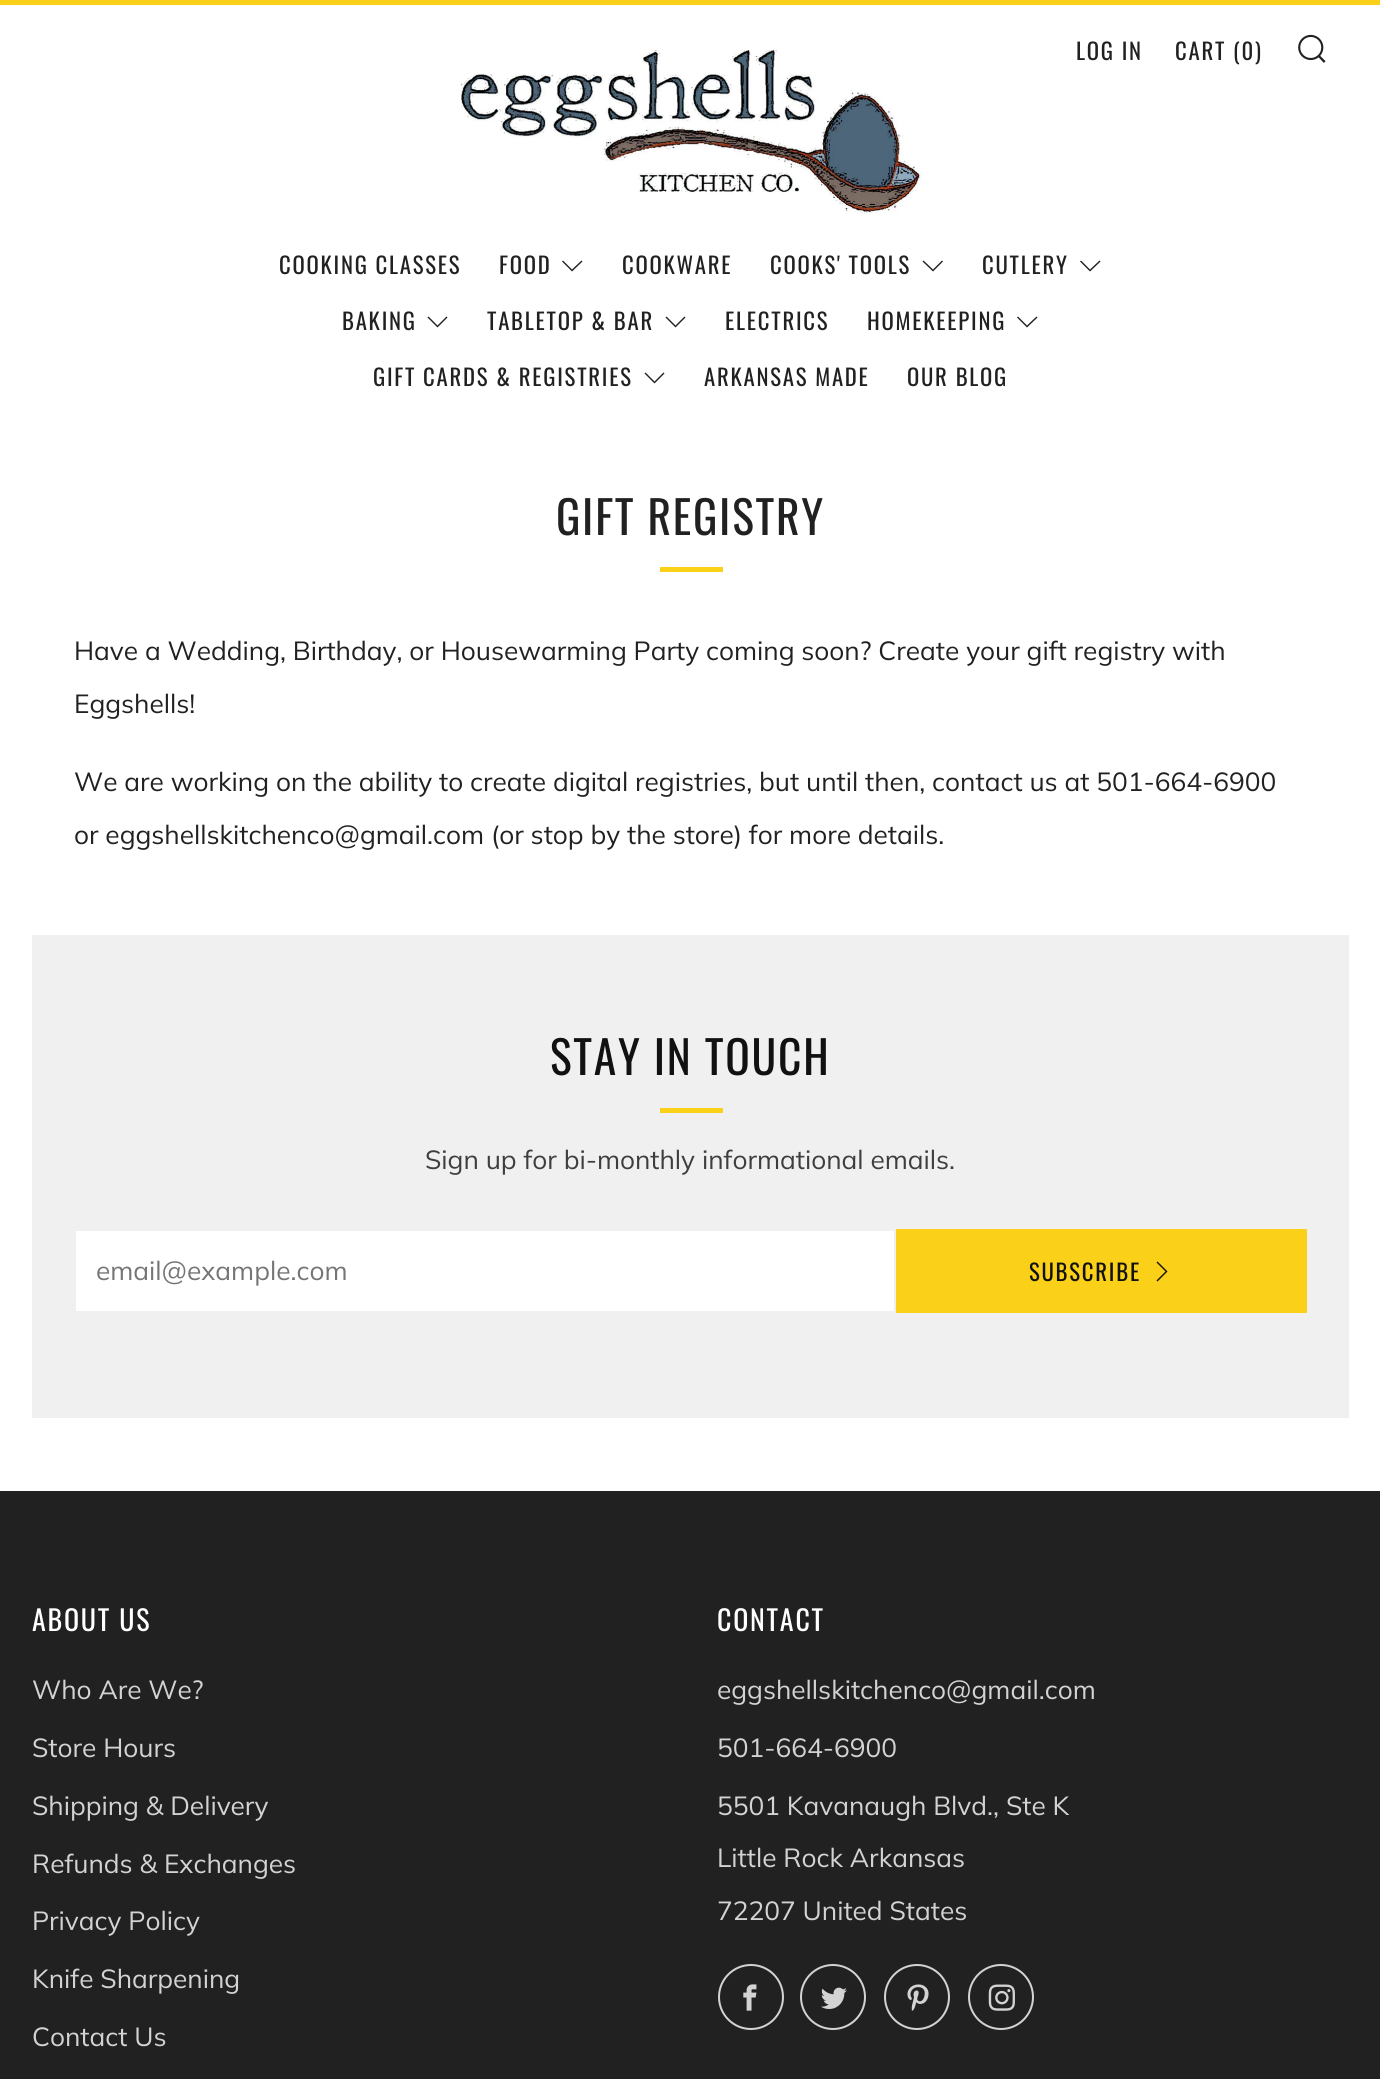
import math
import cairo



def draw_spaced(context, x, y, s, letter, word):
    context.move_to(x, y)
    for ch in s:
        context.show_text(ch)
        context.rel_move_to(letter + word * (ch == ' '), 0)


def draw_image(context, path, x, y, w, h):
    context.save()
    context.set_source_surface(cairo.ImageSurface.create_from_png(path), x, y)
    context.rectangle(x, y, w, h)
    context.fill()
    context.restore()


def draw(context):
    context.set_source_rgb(1, 1, 1)
    context.paint()
    context.set_source_rgb(250 / 255, 208 / 255, 24 / 255)
    context.rectangle(0, 0, 1380, 5)
    context.fill()
    draw_image(context, "images/1.png", 1298, 34, 28, 29)
    context.set_source_rgb(33 / 255, 33 / 255, 33 / 255)
    context.new_path()
    context.move_to(563, 260.5)
    context.line_to(562, 261.5)
    context.line_to(572, 271.5)
    context.line_to(582.5, 261.5)
    context.line_to(581.5, 260.5)
    context.line_to(572, 269.5)
    context.close_path()
    context.fill()
    context.new_path()
    context.move_to(923.5, 260.5)
    context.line_to(922.5, 261.5)
    context.line_to(933, 271.5)
    context.line_to(943, 261.5)
    context.line_to(942, 260.5)
    context.line_to(933, 269.5)
    context.close_path()
    context.fill()
    context.new_path()
    context.move_to(1081, 260.5)
    context.line_to(1080, 261.5)
    context.line_to(1090, 271.5)
    context.line_to(1100.5, 261.5)
    context.line_to(1099.5, 260.5)
    context.line_to(1090, 269.5)
    context.close_path()
    context.fill()
    context.new_path()
    context.move_to(428.5, 316.5)
    context.line_to(427.5, 317.5)
    context.line_to(437.5, 327.5)
    context.line_to(447.5, 317.5)
    context.line_to(446.5, 316.5)
    context.line_to(437.5, 325.5)
    context.close_path()
    context.fill()
    context.new_path()
    context.move_to(666.5, 316.5)
    context.line_to(665.5, 317.5)
    context.line_to(675.5, 327.5)
    context.line_to(685.5, 317.5)
    context.line_to(684.5, 316.5)
    context.line_to(675.5, 325.5)
    context.close_path()
    context.fill()
    context.new_path()
    context.move_to(1018, 316.5)
    context.line_to(1017, 317.5)
    context.line_to(1027, 327.5)
    context.line_to(1037.5, 317.5)
    context.line_to(1036.5, 316.5)
    context.line_to(1027, 325.5)
    context.close_path()
    context.fill()
    context.new_path()
    context.move_to(645.5, 372.5)
    context.line_to(644.5, 373.5)
    context.line_to(654.5, 383.5)
    context.line_to(664.5, 373.5)
    context.line_to(663.5, 372.5)
    context.line_to(654.5, 381.5)
    context.close_path()
    context.fill()
    draw_image(context, "images/2.png", 460, 50, 462, 164)
    context.set_source_rgb(250 / 255, 208 / 255, 24 / 255)
    context.rectangle(660, 567, 63, 5)
    context.fill()
    context.set_source_rgb(240 / 255, 240 / 255, 240 / 255)
    context.rectangle(32, 935, 1317, 483)
    context.fill()
    context.set_source_rgb(250 / 255, 208 / 255, 24 / 255)
    context.rectangle(660, 1108, 63, 5)
    context.fill()
    context.set_source_rgb(1, 1, 1)
    context.rectangle(76, 1231, 818, 80)
    context.fill()
    context.set_source_rgb(250 / 255, 208 / 255, 24 / 255)
    context.rectangle(896, 1229, 411, 84)
    context.fill()
    context.set_source_rgb(17 / 255, 17 / 255, 17 / 255)
    context.new_path()
    context.move_to(1156.5, 1280.5)
    context.line_to(1157.5, 1281.5)
    context.line_to(1167.5, 1271.5)
    context.line_to(1157.5, 1261.5)
    context.line_to(1156.5, 1262.5)
    context.line_to(1165.5, 1271.5)
    context.close_path()
    context.fill()
    context.set_source_rgb(33 / 255, 33 / 255, 33 / 255)
    context.rectangle(0, 1491, 1380, 588)
    context.fill()
    context.arc(751, 1997, 32, 0, 2 * math.pi)
    context.set_source_rgb(211 / 255, 211 / 255, 211 / 255)
    context.stroke()
    draw_image(context, "images/3.png", 743, 1984, 14, 27)
    context.arc(833, 1997, 32, 0, 2 * math.pi)
    context.stroke()
    draw_image(context, "images/4.png", 821, 1987, 26, 22)
    context.arc(917, 1997, 32, 0, 2 * math.pi)
    context.stroke()
    draw_image(context, "images/5.png", 907, 1984, 22, 27)
    context.arc(1001, 1997, 32, 0, 2 * math.pi)
    context.stroke()
    draw_image(context, "images/6.png", 988, 1984, 27, 27)
    context.select_font_face("Oswald")
    context.set_font_size(22.75)
    context.set_source_rgb(33 / 255, 33 / 255, 33 / 255)
    draw_spaced(context, 1076, 60, "LOG IN", 1.75, 0)
    draw_spaced(context, 1175, 60, "CART (0)", 1.75, 0)
    draw_spaced(context, 279, 274, "COOKING CLASSES", 1.75, 0)
    draw_spaced(context, 499, 274, "FOOD", 1.75, 0)
    draw_spaced(context, 622, 274, "COOKWARE", 1.75, 0)
    draw_spaced(context, 770, 274, "COOKS' TOOLS", 1.75, 0)
    draw_spaced(context, 982, 274, "CUTLERY", 1.75, 0)
    draw_spaced(context, 342, 330, "BAKING", 1.75, 0)
    draw_spaced(context, 487, 330, "TABLETOP & BAR", 1.75, 0)
    draw_spaced(context, 725, 330, "ELECTRICS", 1.75, 0)
    draw_spaced(context, 867, 330, "HOMEKEEPING", 1.75, 0)
    draw_spaced(context, 373, 386, "GIFT CARDS & REGISTRIES", 1.75, 0)
    draw_spaced(context, 704, 386, "ARKANSAS MADE", 1.75, 0)
    draw_spaced(context, 907, 386, "OUR BLOG", 1.75, 0)
    context.set_font_size(45.5)
    draw_spaced(context, 556, 535, "GIFT REGISTRY", 1.75, 0)
    context.select_font_face("Muli")
    context.set_font_size(26.25)
    context.move_to(74, 660)
    context.show_text("Have a Wedding, Birthday, or Housewarming Party coming soon? Create your gift registry with")
    context.move_to(74, 713)
    context.show_text("Eggshells!")
    context.move_to(74, 791)
    context.show_text("We are working on the ability to create digital registries, but until then, contact us at 501-664-6900")
    context.move_to(74, 844)
    context.show_text("or eggshellskitchenco@gmail.com (or stop by the store) for more details.")
    context.select_font_face("Oswald")
    context.set_font_size(45.5)
    context.set_source_rgb(17 / 255, 17 / 255, 17 / 255)
    draw_spaced(context, 550, 1075, "STAY IN TOUCH", 1.75, 0)
    context.select_font_face("Muli")
    context.set_font_size(26.25)
    context.set_source_rgb(62 / 255, 62 / 255, 62 / 255)
    context.move_to(425, 1169)
    context.show_text("Sign up for bi-monthly informational emails.")
    context.set_source_rgb(117 / 255, 117 / 255, 117 / 255)
    context.move_to(96, 1280)
    context.show_text("email@example.com")
    context.select_font_face("Oswald")
    context.set_font_size(22.75)
    context.set_source_rgb(17 / 255, 17 / 255, 17 / 255)
    draw_spaced(context, 1029, 1281, "SUBSCRIBE", 1.75, 0)
    context.set_font_size(28)
    context.set_source_rgb(1, 1, 1)
    draw_spaced(context, 32, 1631, "ABOUT US", 1.75, 0)
    context.select_font_face("Muli")
    context.set_font_size(26.25)
    context.set_source_rgb(211 / 255, 211 / 255, 211 / 255)
    context.move_to(32, 1699)
    context.show_text("Who Are We?")
    context.move_to(32, 1757)
    context.show_text("Store Hours")
    context.move_to(32, 1815)
    context.show_text("Shipping & Delivery")
    context.move_to(32, 1873)
    context.show_text("Refunds & Exchanges")
    context.move_to(32, 1930)
    context.show_text("Privacy Policy")
    context.move_to(32, 1988)
    context.show_text("Knife Sharpening")
    context.move_to(32, 2046)
    context.show_text("Contact Us")
    context.select_font_face("Oswald")
    context.set_font_size(28)
    context.set_source_rgb(1, 1, 1)
    draw_spaced(context, 717, 1631, "CONTACT", 1.75, 0)
    context.select_font_face("Muli")
    context.set_font_size(26.25)
    context.set_source_rgb(211 / 255, 211 / 255, 211 / 255)
    context.move_to(717, 1699)
    context.show_text("eggshellskitchenco@gmail.com")
    context.move_to(717, 1757)
    context.show_text("501-664-6900")
    context.move_to(717, 1815)
    context.show_text("5501 Kavanaugh Blvd., Ste K")
    context.move_to(717, 1867)
    context.show_text("Little Rock Arkansas")
    context.move_to(717, 1920)
    context.show_text("72207 United States")


surface = cairo.ImageSurface(cairo.Format.RGB24, 1380, 2079)
context = cairo.Context(surface)
options = cairo.FontOptions()
options.set_hint_metrics(cairo.HintMetrics.OFF)
options.set_hint_style(cairo.HintStyle.NONE)
context.set_font_options(options)
context.set_miter_limit(4)
draw(context)
surface.write_to_png("out.png")
